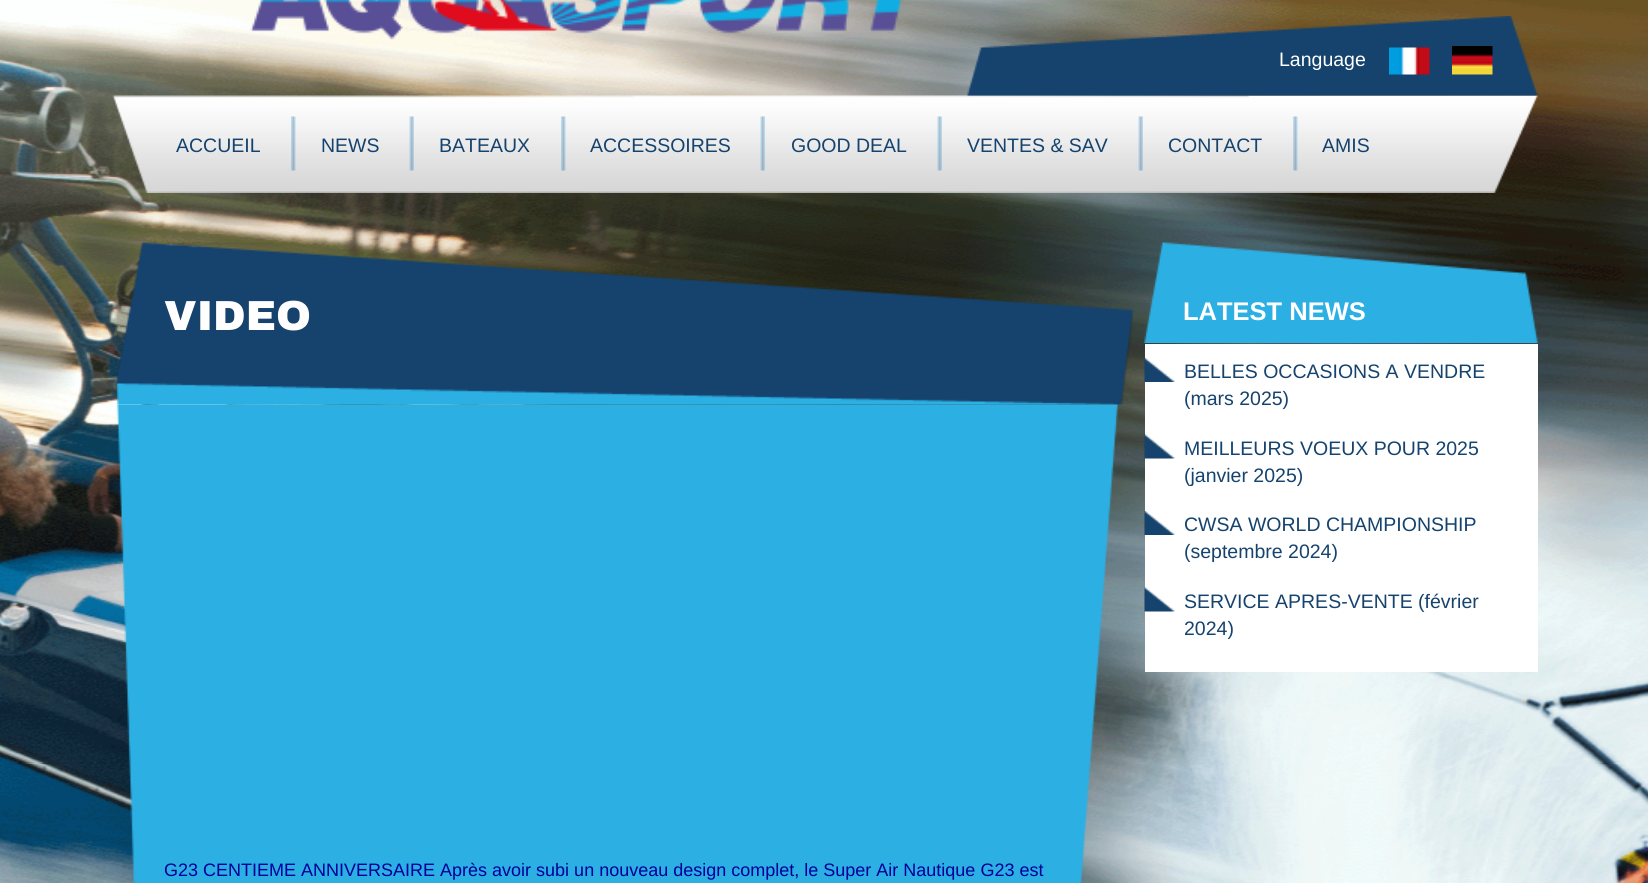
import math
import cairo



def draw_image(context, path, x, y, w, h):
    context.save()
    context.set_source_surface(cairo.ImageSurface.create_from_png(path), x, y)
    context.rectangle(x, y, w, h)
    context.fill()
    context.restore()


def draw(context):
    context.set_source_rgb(1, 1, 1)
    context.paint()
    draw_image(context, "images/1.png", 0, 0, 1648, 883)
    draw_image(context, "images/2.png", 250, 0, 653, 40)
    draw_image(context, "images/6.png", 112, 95, 1426, 98)
    draw_image(context, "images/3.png", 967, 16, 571, 80)
    draw_image(context, "images/4.png", 1389, 47, 41, 28)
    draw_image(context, "images/5.png", 1452, 46, 41, 29)
    draw_image(context, "images/7.png", 291, 116, 5, 55)
    draw_image(context, "images/8.png", 409, 116, 5, 55)
    draw_image(context, "images/7.png", 561, 116, 5, 55)
    draw_image(context, "images/9.png", 760, 116, 5, 55)
    draw_image(context, "images/9.png", 937, 116, 5, 55)
    draw_image(context, "images/8.png", 1138, 116, 5, 55)
    draw_image(context, "images/7.png", 1293, 116, 5, 55)
    draw_image(context, "images/10.png", 115, 242, 1018, 163)
    draw_image(context, "images/11.png", 116, 404, 1002, 479)
    draw_image(context, "images/12.png", 1144, 242, 394, 101)
    context.set_source_rgb(1, 1, 1)
    context.rectangle(1145, 344, 393, 328)
    context.fill()
    draw_image(context, "images/13.png", 1144, 358, 31, 24)
    draw_image(context, "images/14.png", 1144, 434, 31, 25)
    draw_image(context, "images/15.png", 1144, 511, 31, 24)
    draw_image(context, "images/16.png", 1144, 587, 31, 25)
    context.select_font_face("Liberation Sans")
    context.set_font_size(19.5)
    context.move_to(1279, 66)
    context.show_text("Language")
    context.set_source_rgb(21 / 255, 67 / 255, 109 / 255)
    context.move_to(176, 152)
    context.show_text("ACCUEIL")
    context.move_to(321, 152)
    context.show_text("NEWS")
    context.move_to(439, 152)
    context.show_text("BATEAUX")
    context.move_to(590, 152)
    context.show_text("ACCESSOIRES")
    context.move_to(791, 152)
    context.show_text("GOOD DEAL")
    context.move_to(967, 152)
    context.show_text("VENTES & SAV")
    context.move_to(1168, 152)
    context.show_text("CONTACT")
    context.move_to(1322, 152)
    context.show_text("AMIS")
    context.select_font_face("Archivo Black")
    context.set_font_size(42)
    context.set_source_rgb(1, 1, 1)
    context.move_to(164, 330)
    context.show_text("VIDEO")
    context.select_font_face("Liberation Sans")
    context.set_font_size(18)
    context.set_source_rgb(0, 0, 153 / 255)
    context.move_to(164, 876)
    context.show_text("G23 CENTIEME ANNIVERSAIRE Après avoir subi un nouveau design complet, le Super Air Nautique G23 est")
    context.select_font_face("Liberation Sans", cairo.FontSlant.NORMAL, cairo.FontWeight.BOLD)
    context.set_font_size(25.5)
    context.set_source_rgb(1, 1, 1)
    context.move_to(1183, 320)
    context.show_text("LATEST NEWS")
    context.select_font_face("Liberation Sans")
    context.set_font_size(19.5)
    context.set_source_rgb(21 / 255, 67 / 255, 109 / 255)
    context.move_to(1184, 378)
    context.show_text("BELLES OCCASIONS A VENDRE")
    context.move_to(1184, 405)
    context.show_text("(mars 2025)")
    context.move_to(1184, 455)
    context.show_text("MEILLEURS VOEUX POUR 2025")
    context.move_to(1184, 482)
    context.show_text("(janvier 2025)")
    context.move_to(1184, 531)
    context.show_text("CWSA WORLD CHAMPIONSHIP")
    context.move_to(1184, 558)
    context.show_text("(septembre 2024)")
    context.move_to(1184, 608)
    context.show_text("SERVICE APRES-VENTE (février")
    context.move_to(1184, 635)
    context.show_text("2024)")


surface = cairo.ImageSurface(cairo.Format.RGB24, 1648, 883)
context = cairo.Context(surface)
options = cairo.FontOptions()
options.set_hint_metrics(cairo.HintMetrics.OFF)
options.set_hint_style(cairo.HintStyle.NONE)
context.set_font_options(options)
context.set_miter_limit(4)
draw(context)
surface.write_to_png("out.png")
